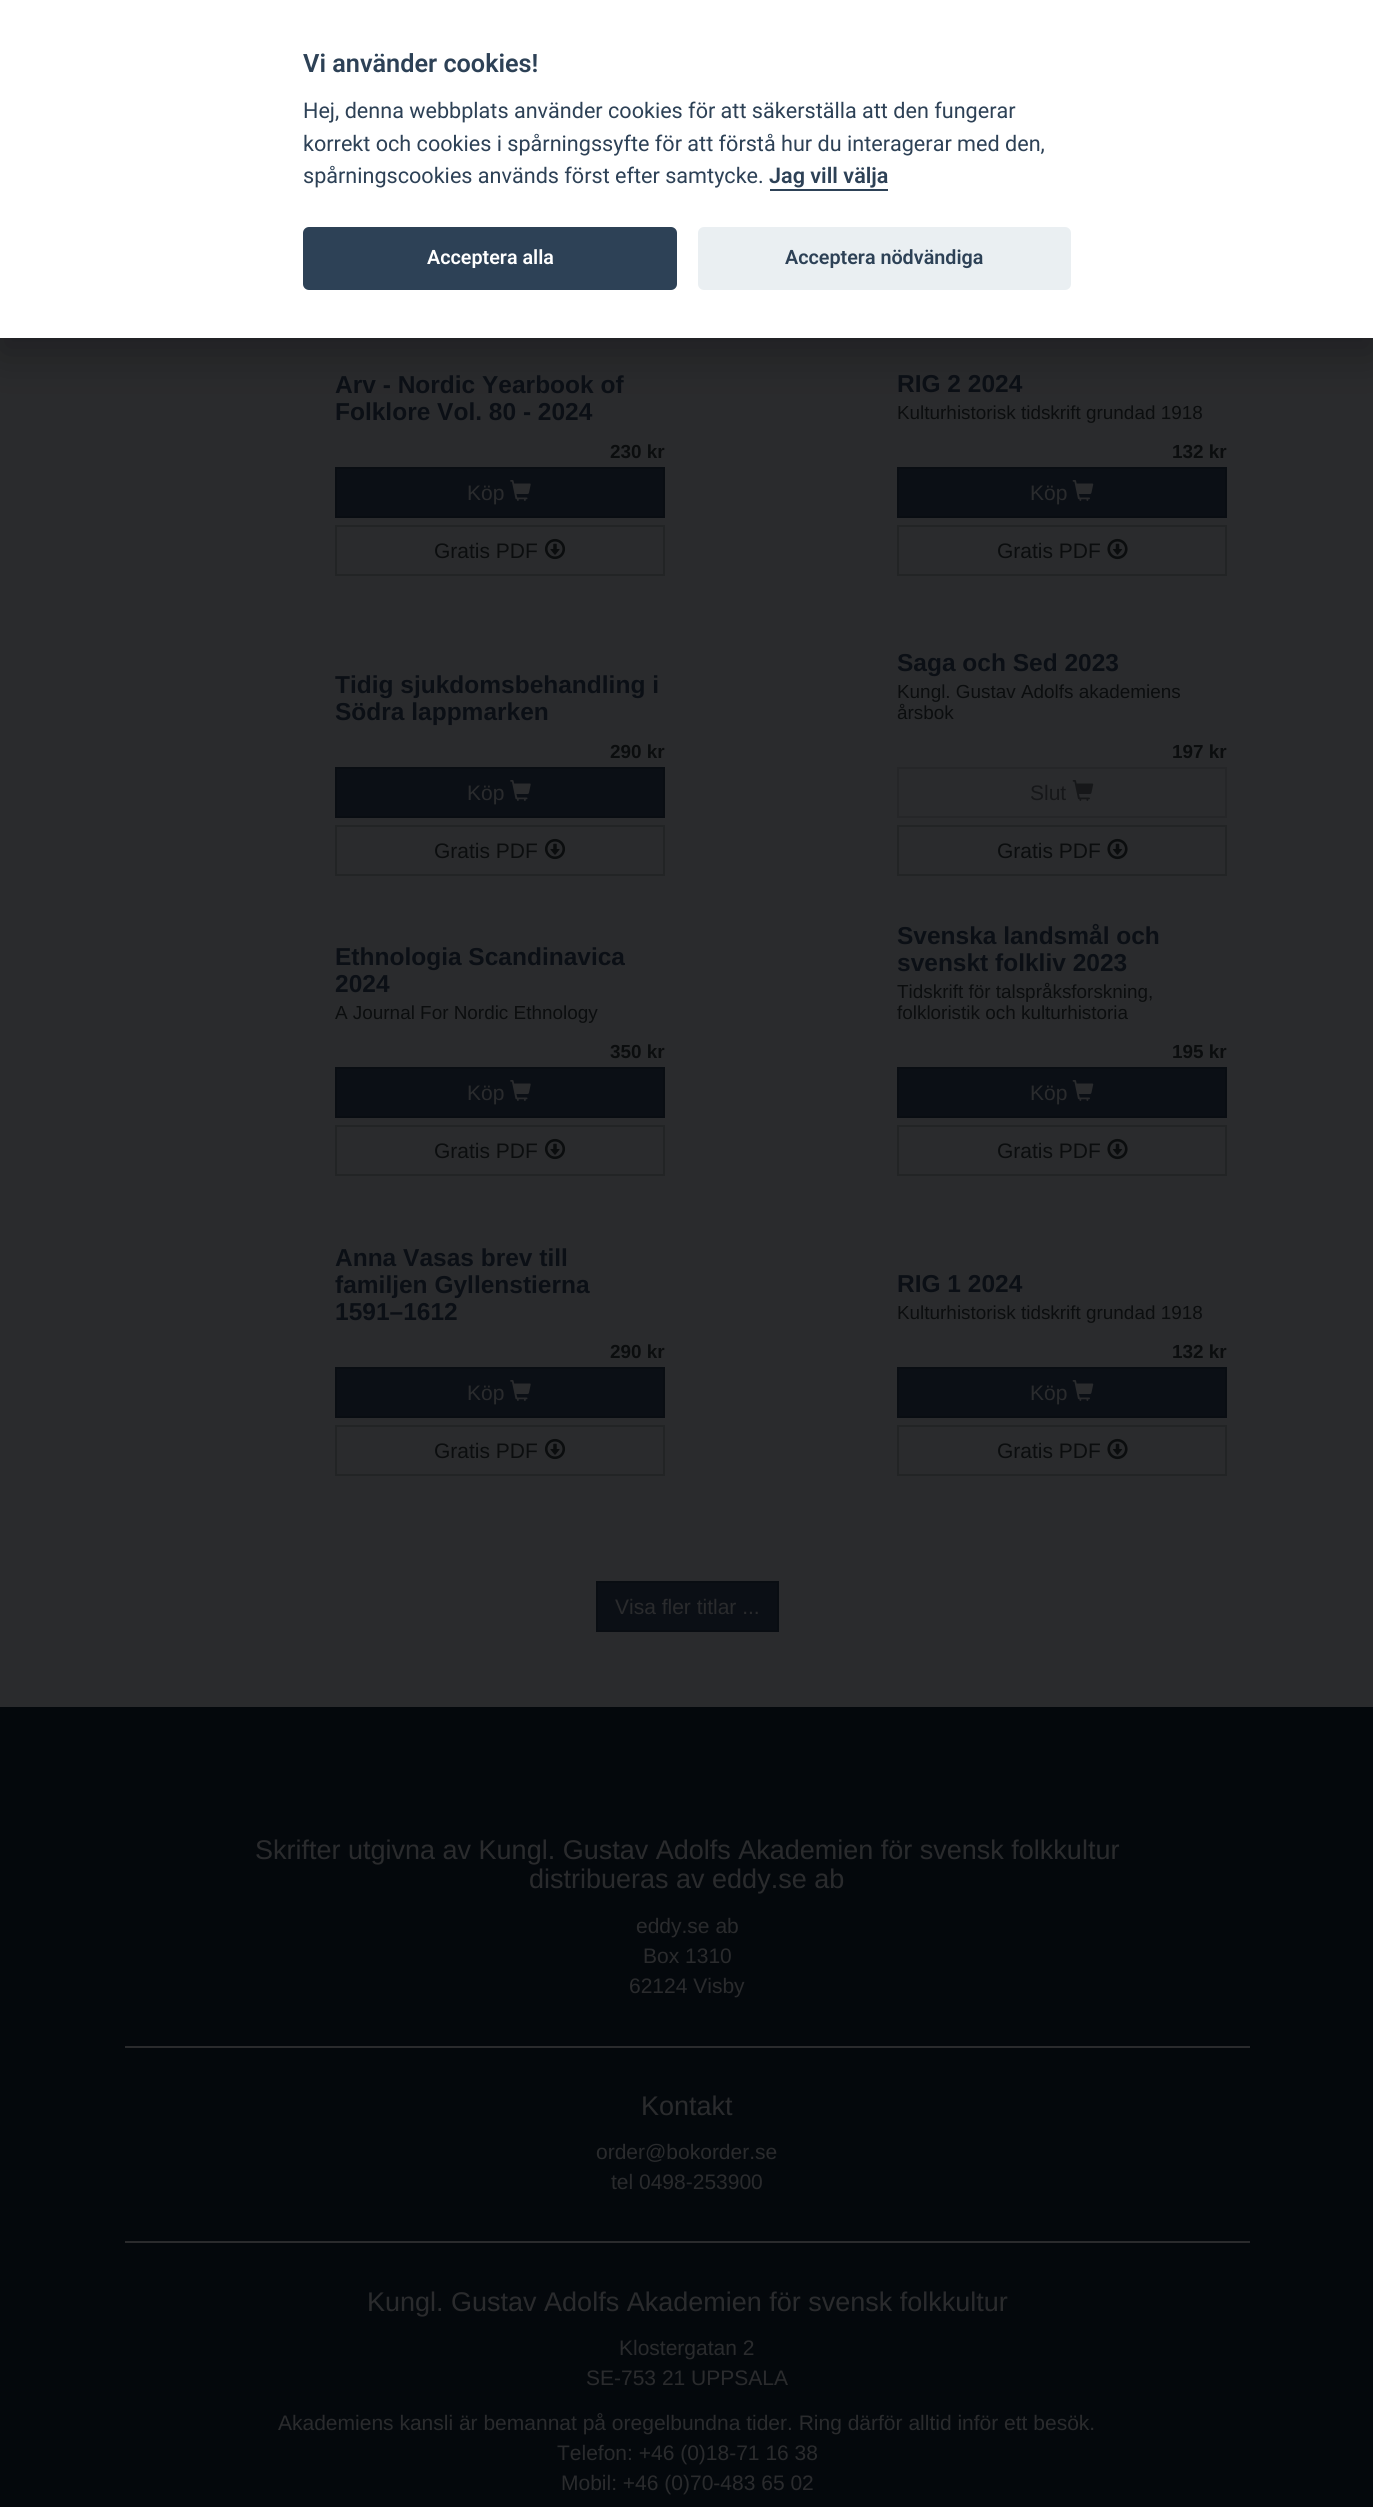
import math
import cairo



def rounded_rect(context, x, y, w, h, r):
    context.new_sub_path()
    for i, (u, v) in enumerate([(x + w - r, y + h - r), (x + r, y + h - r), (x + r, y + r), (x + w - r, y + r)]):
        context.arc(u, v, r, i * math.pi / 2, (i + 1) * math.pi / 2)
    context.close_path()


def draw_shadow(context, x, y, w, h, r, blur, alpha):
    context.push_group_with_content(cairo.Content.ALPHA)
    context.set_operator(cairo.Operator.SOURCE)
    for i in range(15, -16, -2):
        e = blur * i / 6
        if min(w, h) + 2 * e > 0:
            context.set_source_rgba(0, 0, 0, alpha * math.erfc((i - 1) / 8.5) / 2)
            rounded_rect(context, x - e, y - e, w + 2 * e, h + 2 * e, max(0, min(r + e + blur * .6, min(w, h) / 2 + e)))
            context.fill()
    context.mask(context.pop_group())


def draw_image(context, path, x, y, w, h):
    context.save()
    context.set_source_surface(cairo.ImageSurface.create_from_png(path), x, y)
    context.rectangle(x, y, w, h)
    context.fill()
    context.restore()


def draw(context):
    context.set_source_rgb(42 / 255, 43 / 255, 45 / 255)
    context.paint()
    context.set_source_rgb(2 / 255, 2 / 255, 3 / 255)
    draw_shadow(context, 0, 15, 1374, 338, 0, 22.5, 0.28)
    context.set_source_rgb(1, 1, 1)
    context.rectangle(0, 0, 1373, 338)
    context.fill()
    context.set_source_rgb(45 / 255, 65 / 255, 86 / 255)
    context.rectangle(770, 189, 118, 2)
    context.fill()
    rounded_rect(context, 303, 227, 374, 63, 6)
    context.fill()
    context.set_source_rgb(234 / 255, 239 / 255, 242 / 255)
    rounded_rect(context, 698, 227, 373, 63, 6)
    context.fill()
    context.set_source_rgb(11 / 255, 15 / 255, 21 / 255)
    context.rectangle(336, 468, 328, 49)
    context.fill_preserve()
    context.set_source_rgb(9 / 255, 13 / 255, 18 / 255)
    context.stroke()
    draw_image(context, "images/1.png", 510, 480, 21, 21)
    context.rectangle(336, 526, 328, 49)
    context.set_source_rgb(34 / 255, 36 / 255, 37 / 255)
    context.stroke()
    draw_image(context, "images/2.png", 544, 538, 22, 22)
    context.set_source_rgb(11 / 255, 15 / 255, 21 / 255)
    context.rectangle(898, 468, 328, 49)
    context.fill_preserve()
    context.set_source_rgb(9 / 255, 13 / 255, 18 / 255)
    context.stroke()
    draw_image(context, "images/3.png", 1072, 480, 22, 21)
    context.rectangle(898, 526, 328, 49)
    context.set_source_rgb(34 / 255, 36 / 255, 37 / 255)
    context.stroke()
    draw_image(context, "images/4.png", 1107, 538, 21, 22)
    context.set_source_rgb(11 / 255, 15 / 255, 21 / 255)
    context.rectangle(336, 768, 328, 49)
    context.fill_preserve()
    context.set_source_rgb(9 / 255, 13 / 255, 18 / 255)
    context.stroke()
    draw_image(context, "images/1.png", 510, 780, 21, 21)
    context.rectangle(336, 826, 328, 49)
    context.set_source_rgb(34 / 255, 36 / 255, 37 / 255)
    context.stroke()
    draw_image(context, "images/2.png", 544, 838, 22, 22)
    context.rectangle(898, 768, 328, 49)
    context.set_source_rgb(37 / 255, 38 / 255, 40 / 255)
    context.stroke()
    draw_image(context, "images/5.png", 1072, 780, 22, 21)
    context.rectangle(898, 826, 328, 49)
    context.set_source_rgb(34 / 255, 36 / 255, 37 / 255)
    context.stroke()
    draw_image(context, "images/4.png", 1107, 838, 21, 22)
    context.set_source_rgb(11 / 255, 15 / 255, 21 / 255)
    context.rectangle(336, 1068, 328, 49)
    context.fill_preserve()
    context.set_source_rgb(9 / 255, 13 / 255, 18 / 255)
    context.stroke()
    draw_image(context, "images/1.png", 510, 1080, 21, 21)
    context.rectangle(336, 1126, 328, 49)
    context.set_source_rgb(34 / 255, 36 / 255, 37 / 255)
    context.stroke()
    draw_image(context, "images/2.png", 544, 1138, 22, 22)
    context.set_source_rgb(11 / 255, 15 / 255, 21 / 255)
    context.rectangle(898, 1068, 328, 49)
    context.fill_preserve()
    context.set_source_rgb(9 / 255, 13 / 255, 18 / 255)
    context.stroke()
    draw_image(context, "images/3.png", 1072, 1080, 22, 21)
    context.rectangle(898, 1126, 328, 49)
    context.set_source_rgb(34 / 255, 36 / 255, 37 / 255)
    context.stroke()
    draw_image(context, "images/4.png", 1107, 1138, 21, 22)
    context.set_source_rgb(11 / 255, 15 / 255, 21 / 255)
    context.rectangle(336, 1368, 328, 49)
    context.fill_preserve()
    context.set_source_rgb(9 / 255, 13 / 255, 18 / 255)
    context.stroke()
    draw_image(context, "images/1.png", 510, 1380, 21, 21)
    context.rectangle(336, 1426, 328, 49)
    context.set_source_rgb(34 / 255, 36 / 255, 37 / 255)
    context.stroke()
    draw_image(context, "images/2.png", 544, 1438, 22, 22)
    context.set_source_rgb(11 / 255, 15 / 255, 21 / 255)
    context.rectangle(898, 1368, 328, 49)
    context.fill_preserve()
    context.set_source_rgb(9 / 255, 13 / 255, 18 / 255)
    context.stroke()
    draw_image(context, "images/3.png", 1072, 1380, 22, 21)
    context.rectangle(898, 1426, 328, 49)
    context.set_source_rgb(34 / 255, 36 / 255, 37 / 255)
    context.stroke()
    draw_image(context, "images/4.png", 1107, 1438, 21, 22)
    context.set_source_rgb(11 / 255, 15 / 255, 21 / 255)
    context.rectangle(597, 1582, 181, 49)
    context.fill_preserve()
    context.set_source_rgb(9 / 255, 13 / 255, 18 / 255)
    context.stroke()
    context.set_source_rgb(4 / 255, 8 / 255, 12 / 255)
    context.rectangle(0, 1707, 1373, 800)
    context.fill()
    context.set_source_rgb(42 / 255, 43 / 255, 45 / 255)
    context.rectangle(125, 2046, 1125, 2)
    context.fill()
    context.rectangle(125, 2241, 1125, 2)
    context.fill()
    context.select_font_face("Roboto SemiBold")
    context.set_font_size(25.25)
    context.set_source_rgb(45 / 255, 65 / 255, 86 / 255)
    context.move_to(303, 72)
    context.show_text("Vi använder cookies!")
    context.select_font_face("Roboto")
    context.set_font_size(21.6)
    context.move_to(303, 118)
    context.show_text("Hej, denna webbplats använder cookies för att säkerställa att den fungerar")
    context.move_to(303, 151)
    context.show_text("korrekt och cookies i spårningssyfte för att förstå hur du interagerar med den,")
    context.move_to(303, 183)
    context.show_text("spårningscookies används först efter samtycke.")
    context.select_font_face("Roboto SemiBold")
    context.move_to(769, 183)
    context.show_text("Jag vill välja")
    context.set_font_size(19.75)
    context.set_source_rgb(1, 1, 1)
    context.move_to(427, 264)
    context.show_text("Acceptera alla")
    context.set_source_rgb(45 / 255, 65 / 255, 86 / 255)
    context.move_to(785, 264)
    context.show_text("Acceptera nödvändiga")
    context.select_font_face("Liberation Sans", cairo.FontSlant.NORMAL, cairo.FontWeight.BOLD)
    context.set_font_size(24.5)
    context.set_source_rgb(11 / 255, 15 / 255, 21 / 255)
    context.move_to(335, 393)
    context.show_text("Arv - Nordic Yearbook of")
    context.move_to(335, 420)
    context.show_text("Folklore Vol. 80 - 2024")
    context.set_font_size(18.9)
    context.set_source_rgb(11 / 255, 13 / 255, 14 / 255)
    context.move_to(610, 458)
    context.show_text("230 kr")
    context.select_font_face("Liberation Sans")
    context.set_font_size(21)
    context.set_source_rgb(42 / 255, 43 / 255, 45 / 255)
    context.move_to(467, 500)
    context.show_text("Köp")
    context.set_source_rgb(11 / 255, 13 / 255, 14 / 255)
    context.move_to(434, 558)
    context.show_text("Gratis PDF")
    context.select_font_face("Liberation Sans", cairo.FontSlant.NORMAL, cairo.FontWeight.BOLD)
    context.set_font_size(24.5)
    context.set_source_rgb(11 / 255, 15 / 255, 21 / 255)
    context.move_to(897, 392)
    context.show_text("RIG 2 2024")
    context.select_font_face("Liberation Sans")
    context.set_font_size(18.9)
    context.set_source_rgb(11 / 255, 13 / 255, 14 / 255)
    context.move_to(897, 419)
    context.show_text("Kulturhistorisk tidskrift grundad 1918")
    context.select_font_face("Liberation Sans", cairo.FontSlant.NORMAL, cairo.FontWeight.BOLD)
    context.move_to(1172, 458)
    context.show_text("132 kr")
    context.select_font_face("Liberation Sans")
    context.set_font_size(21)
    context.set_source_rgb(42 / 255, 43 / 255, 45 / 255)
    context.move_to(1030, 500)
    context.show_text("Köp")
    context.set_source_rgb(11 / 255, 13 / 255, 14 / 255)
    context.move_to(997, 558)
    context.show_text("Gratis PDF")
    context.select_font_face("Liberation Sans", cairo.FontSlant.NORMAL, cairo.FontWeight.BOLD)
    context.set_font_size(24.5)
    context.set_source_rgb(11 / 255, 15 / 255, 21 / 255)
    context.move_to(335, 693)
    context.show_text("Tidig sjukdomsbehandling i")
    context.move_to(335, 720)
    context.show_text("Södra lappmarken")
    context.set_font_size(18.9)
    context.set_source_rgb(11 / 255, 13 / 255, 14 / 255)
    context.move_to(610, 758)
    context.show_text("290 kr")
    context.select_font_face("Liberation Sans")
    context.set_font_size(21)
    context.set_source_rgb(42 / 255, 43 / 255, 45 / 255)
    context.move_to(467, 800)
    context.show_text("Köp")
    context.set_source_rgb(11 / 255, 13 / 255, 14 / 255)
    context.move_to(434, 858)
    context.show_text("Gratis PDF")
    context.select_font_face("Liberation Sans", cairo.FontSlant.NORMAL, cairo.FontWeight.BOLD)
    context.set_font_size(24.5)
    context.set_source_rgb(11 / 255, 15 / 255, 21 / 255)
    context.move_to(897, 671)
    context.show_text("Saga och Sed 2023")
    context.select_font_face("Liberation Sans")
    context.set_font_size(18.9)
    context.set_source_rgb(11 / 255, 13 / 255, 14 / 255)
    context.move_to(897, 698)
    context.show_text("Kungl. Gustav Adolfs akademiens")
    context.move_to(897, 719)
    context.show_text("årsbok")
    context.select_font_face("Liberation Sans", cairo.FontSlant.NORMAL, cairo.FontWeight.BOLD)
    context.move_to(1172, 758)
    context.show_text("197 kr")
    context.select_font_face("Liberation Sans")
    context.set_font_size(21)
    context.set_source_rgb(22 / 255, 23 / 255, 25 / 255)
    context.move_to(1030, 800)
    context.show_text("Slut")
    context.set_source_rgb(11 / 255, 13 / 255, 14 / 255)
    context.move_to(997, 858)
    context.show_text("Gratis PDF")
    context.select_font_face("Liberation Sans", cairo.FontSlant.NORMAL, cairo.FontWeight.BOLD)
    context.set_font_size(24.5)
    context.set_source_rgb(11 / 255, 15 / 255, 21 / 255)
    context.move_to(335, 965)
    context.show_text("Ethnologia Scandinavica")
    context.move_to(335, 992)
    context.show_text("2024")
    context.select_font_face("Liberation Sans")
    context.set_font_size(18.9)
    context.set_source_rgb(11 / 255, 13 / 255, 14 / 255)
    context.move_to(335, 1019)
    context.show_text("A Journal For Nordic Ethnology")
    context.select_font_face("Liberation Sans", cairo.FontSlant.NORMAL, cairo.FontWeight.BOLD)
    context.move_to(610, 1058)
    context.show_text("350 kr")
    context.select_font_face("Liberation Sans")
    context.set_font_size(21)
    context.set_source_rgb(42 / 255, 43 / 255, 45 / 255)
    context.move_to(467, 1100)
    context.show_text("Köp")
    context.set_source_rgb(11 / 255, 13 / 255, 14 / 255)
    context.move_to(434, 1158)
    context.show_text("Gratis PDF")
    context.select_font_face("Liberation Sans", cairo.FontSlant.NORMAL, cairo.FontWeight.BOLD)
    context.set_font_size(24.5)
    context.set_source_rgb(11 / 255, 15 / 255, 21 / 255)
    context.move_to(897, 944)
    context.show_text("Svenska landsmål och")
    context.move_to(897, 971)
    context.show_text("svenskt folkliv 2023")
    context.select_font_face("Liberation Sans")
    context.set_font_size(18.9)
    context.set_source_rgb(11 / 255, 13 / 255, 14 / 255)
    context.move_to(897, 998)
    context.show_text("Tidskrift för talspråksforskning,")
    context.move_to(897, 1019)
    context.show_text("folkloristik och kulturhistoria")
    context.select_font_face("Liberation Sans", cairo.FontSlant.NORMAL, cairo.FontWeight.BOLD)
    context.move_to(1172, 1058)
    context.show_text("195 kr")
    context.select_font_face("Liberation Sans")
    context.set_font_size(21)
    context.set_source_rgb(42 / 255, 43 / 255, 45 / 255)
    context.move_to(1030, 1100)
    context.show_text("Köp")
    context.set_source_rgb(11 / 255, 13 / 255, 14 / 255)
    context.move_to(997, 1158)
    context.show_text("Gratis PDF")
    context.select_font_face("Liberation Sans", cairo.FontSlant.NORMAL, cairo.FontWeight.BOLD)
    context.set_font_size(24.5)
    context.set_source_rgb(11 / 255, 15 / 255, 21 / 255)
    context.move_to(335, 1266)
    context.show_text("Anna Vasas brev till")
    context.move_to(335, 1293)
    context.show_text("familjen Gyllenstierna")
    context.move_to(335, 1320)
    context.show_text("1591–1612")
    context.set_font_size(18.9)
    context.set_source_rgb(11 / 255, 13 / 255, 14 / 255)
    context.move_to(610, 1358)
    context.show_text("290 kr")
    context.select_font_face("Liberation Sans")
    context.set_font_size(21)
    context.set_source_rgb(42 / 255, 43 / 255, 45 / 255)
    context.move_to(467, 1400)
    context.show_text("Köp")
    context.set_source_rgb(11 / 255, 13 / 255, 14 / 255)
    context.move_to(434, 1458)
    context.show_text("Gratis PDF")
    context.select_font_face("Liberation Sans", cairo.FontSlant.NORMAL, cairo.FontWeight.BOLD)
    context.set_font_size(24.5)
    context.set_source_rgb(11 / 255, 15 / 255, 21 / 255)
    context.move_to(897, 1292)
    context.show_text("RIG 1 2024")
    context.select_font_face("Liberation Sans")
    context.set_font_size(18.9)
    context.set_source_rgb(11 / 255, 13 / 255, 14 / 255)
    context.move_to(897, 1319)
    context.show_text("Kulturhistorisk tidskrift grundad 1918")
    context.select_font_face("Liberation Sans", cairo.FontSlant.NORMAL, cairo.FontWeight.BOLD)
    context.move_to(1172, 1358)
    context.show_text("132 kr")
    context.select_font_face("Liberation Sans")
    context.set_font_size(21)
    context.set_source_rgb(42 / 255, 43 / 255, 45 / 255)
    context.move_to(1030, 1400)
    context.show_text("Köp")
    context.set_source_rgb(11 / 255, 13 / 255, 14 / 255)
    context.move_to(997, 1458)
    context.show_text("Gratis PDF")
    context.set_source_rgb(42 / 255, 43 / 255, 45 / 255)
    context.move_to(615, 1614)
    context.show_text("Visa fler titlar ...")
    context.set_font_size(27)
    context.move_to(255, 1859)
    context.show_text("Skrifter utgivna av Kungl. Gustav Adolfs Akademien för svensk folkkultur")
    context.move_to(529, 1888)
    context.show_text("distribueras av eddy.se ab")
    context.set_font_size(21)
    context.move_to(636, 1933)
    context.show_text("eddy.se ab")
    context.move_to(643, 1963)
    context.show_text("Box 1310")
    context.move_to(629, 1993)
    context.show_text("62124 Visby")
    context.set_font_size(27)
    context.move_to(641, 2115)
    context.show_text("Kontakt")
    context.set_font_size(21)
    context.move_to(596, 2159)
    context.show_text("order@bokorder.se")
    context.move_to(611, 2189)
    context.show_text("tel 0498-253900")
    context.set_font_size(27)
    context.move_to(367, 2311)
    context.show_text("Kungl. Gustav Adolfs Akademien för svensk folkkultur")
    context.set_font_size(21)
    context.move_to(619, 2355)
    context.show_text("Klostergatan 2")
    context.move_to(586, 2385)
    context.show_text("SE-753 21 UPPSALA")
    context.move_to(278, 2430)
    context.show_text("Akademiens kansli är bemannat på oregelbundna tider. Ring därför alltid inför ett besök.")
    context.move_to(557, 2460)
    context.show_text("Telefon: +46 (0)18-71 16 38")
    context.move_to(561, 2490)
    context.show_text("Mobil: +46 (0)70-483 65 02")


surface = cairo.ImageSurface(cairo.Format.RGB24, 1373, 2507)
context = cairo.Context(surface)
options = cairo.FontOptions()
options.set_hint_metrics(cairo.HintMetrics.OFF)
options.set_hint_style(cairo.HintStyle.NONE)
context.set_font_options(options)
context.set_miter_limit(4)
draw(context)
surface.write_to_png("out.png")
